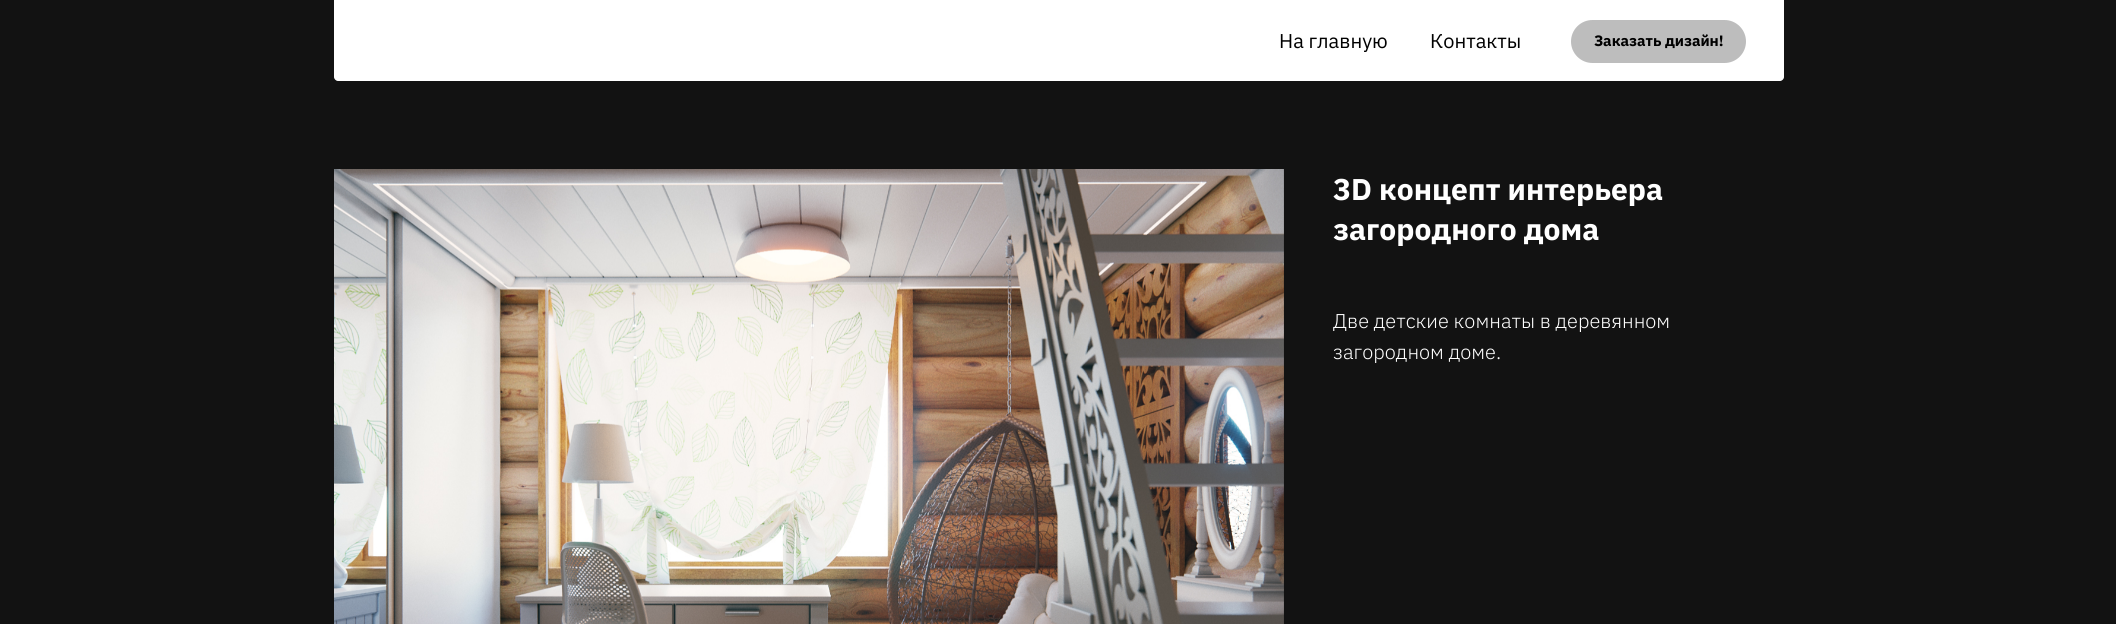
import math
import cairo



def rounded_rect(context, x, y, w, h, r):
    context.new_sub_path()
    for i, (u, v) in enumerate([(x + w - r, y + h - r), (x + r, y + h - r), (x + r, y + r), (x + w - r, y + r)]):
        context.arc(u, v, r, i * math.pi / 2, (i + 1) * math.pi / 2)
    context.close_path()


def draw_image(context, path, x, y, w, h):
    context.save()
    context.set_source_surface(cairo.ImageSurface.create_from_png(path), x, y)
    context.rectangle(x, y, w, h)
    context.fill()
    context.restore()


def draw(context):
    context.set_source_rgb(18 / 255, 18 / 255, 18 / 255)
    context.paint()
    context.set_source_rgb(1, 1, 1)
    context.new_path()
    context.move_to(334, 0)
    context.line_to(1784, 0)
    context.line_to(1784, 77)
    context.curve_to(1784, 79, 1782, 81, 1780, 81)
    context.line_to(338, 81)
    context.curve_to(336, 81, 334, 79, 334, 77)
    context.close_path()
    context.fill()
    context.set_source_rgb(189 / 255, 189 / 255, 189 / 255)
    rounded_rect(context, 1571, 20, 175, 43, 21.5)
    context.fill()
    draw_image(context, "images/1.png", 334, 169, 950, 455)
    context.select_font_face("IBM Plex Sans")
    context.set_font_size(20)
    context.set_source_rgb(0, 0, 0)
    context.move_to(1279, 48)
    context.show_text("На главную")
    context.move_to(1430, 48)
    context.show_text("Контакты")
    context.select_font_face("IBM Plex Sans", cairo.FontSlant.NORMAL, cairo.FontWeight.BOLD)
    context.set_font_size(15)
    context.move_to(1594, 46)
    context.show_text("Заказать дизайн!")
    context.set_font_size(30)
    context.set_source_rgb(1, 1, 1)
    context.move_to(1333, 200)
    context.show_text("3D концепт интерьера")
    context.move_to(1333, 240)
    context.show_text("загородного дома")
    context.select_font_face("IBM Plex Sans Light")
    context.set_font_size(20)
    context.move_to(1333, 328)
    context.show_text("Две детские комнаты в деревянном")
    context.move_to(1333, 359)
    context.show_text("загородном доме.")


surface = cairo.ImageSurface(cairo.Format.RGB24, 2116, 624)
context = cairo.Context(surface)
options = cairo.FontOptions()
options.set_hint_metrics(cairo.HintMetrics.OFF)
options.set_hint_style(cairo.HintStyle.NONE)
context.set_font_options(options)
context.set_miter_limit(4)
draw(context)
surface.write_to_png("out.png")
